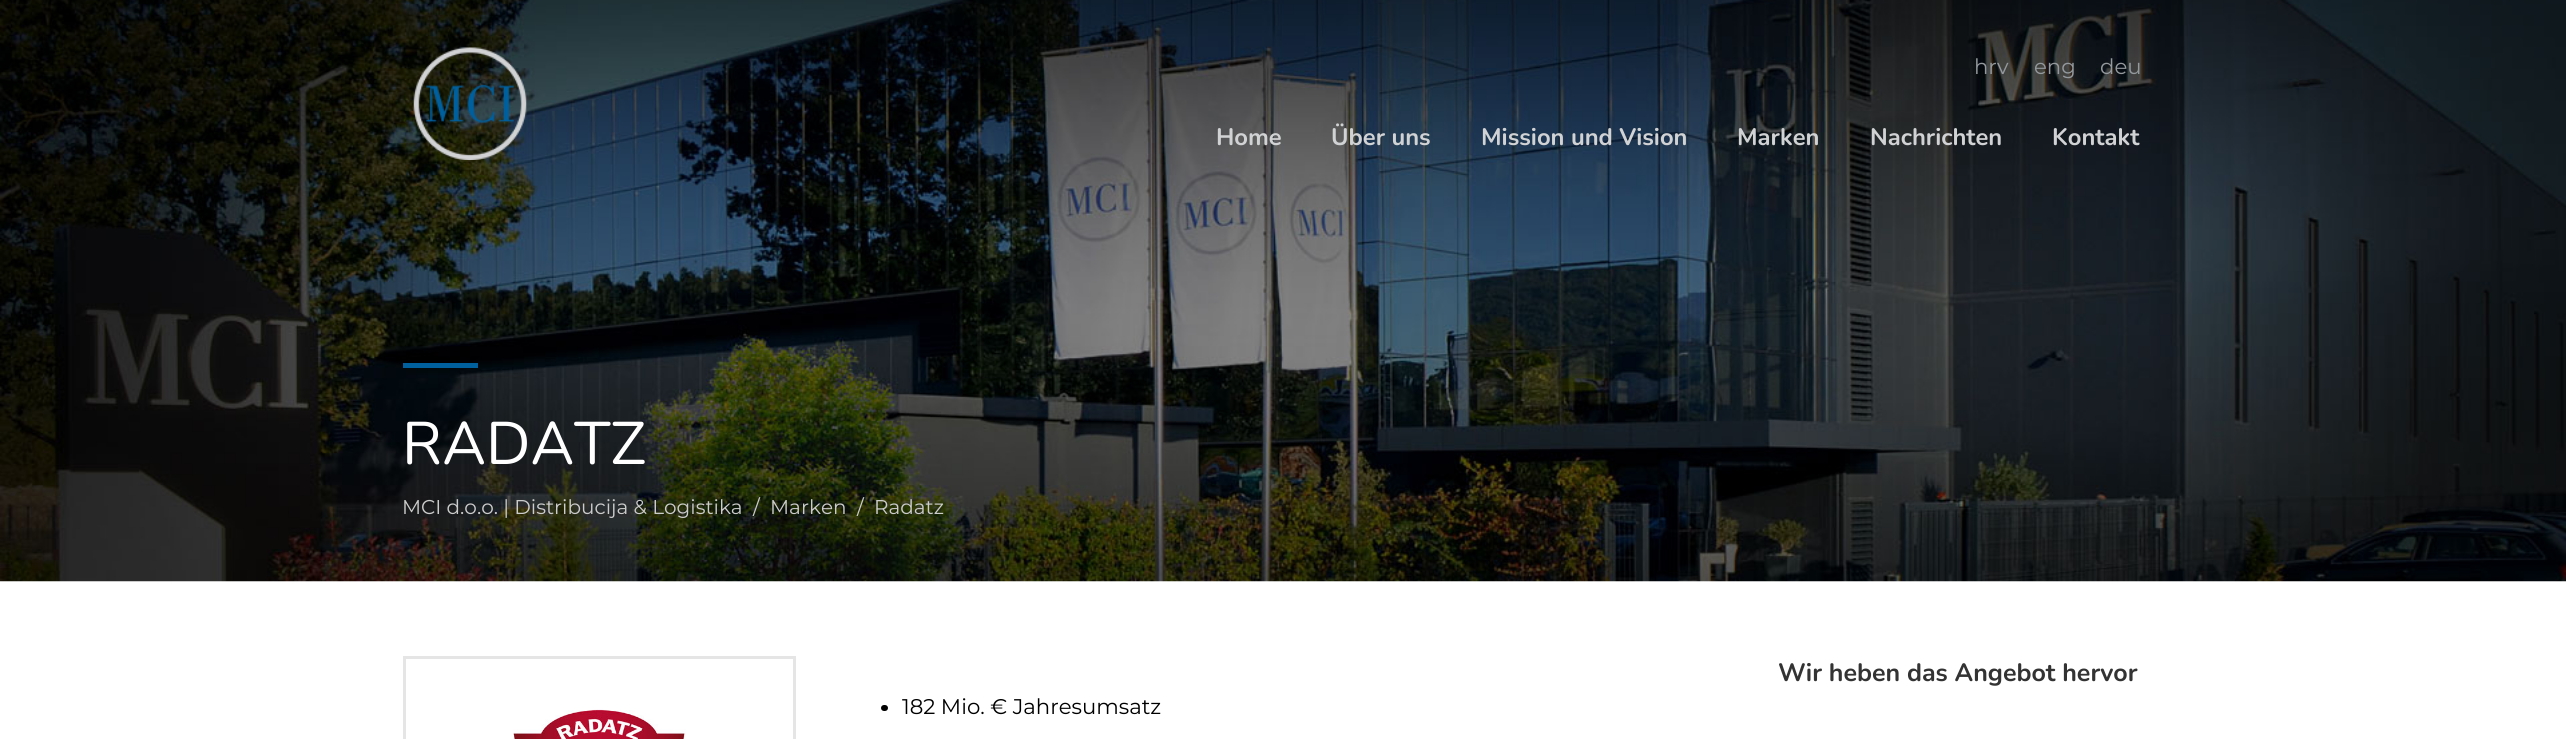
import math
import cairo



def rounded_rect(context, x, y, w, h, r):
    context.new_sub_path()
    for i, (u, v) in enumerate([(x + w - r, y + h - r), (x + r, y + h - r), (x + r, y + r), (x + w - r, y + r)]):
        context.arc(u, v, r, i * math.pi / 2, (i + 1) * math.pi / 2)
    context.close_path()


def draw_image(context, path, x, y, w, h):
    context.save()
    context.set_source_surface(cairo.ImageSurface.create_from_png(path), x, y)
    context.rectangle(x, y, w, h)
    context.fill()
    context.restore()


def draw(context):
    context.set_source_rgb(1, 1, 1)
    context.paint()
    draw_image(context, "images/2.png", 0, 0, 2566, 582)
    draw_image(context, "images/1.png", 413, 47, 114, 113)
    context.set_source_rgb(0, 95 / 255, 157 / 255)
    context.rectangle(403, 363, 75, 5)
    context.fill()
    context.rectangle(404.5, 657.5, 390, 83)
    context.set_source_rgb(229 / 255, 229 / 255, 229 / 255)
    context.set_line_width(3)
    context.stroke()
    draw_image(context, "images/3.png", 513, 709, 173, 30)
    context.set_source_rgb(0, 0, 0)
    rounded_rect(context, 881, 705, 7, 6, 3)
    context.fill()
    context.select_font_face("Montserrat Thin")
    context.set_font_size(21.25)
    context.set_source_rgb(148 / 255, 153 / 255, 157 / 255)
    context.move_to(1974, 74)
    context.show_text("hrv")
    context.move_to(2034, 74)
    context.show_text("eng")
    context.move_to(2100, 74)
    context.show_text("deu")
    context.select_font_face("Nunito", cairo.FontSlant.NORMAL, cairo.FontWeight.BOLD)
    context.set_font_size(23.75)
    context.set_source_rgb(209 / 255, 210 / 255, 212 / 255)
    context.move_to(1216, 145)
    context.show_text("Home")
    context.move_to(1331, 145)
    context.show_text("Über uns")
    context.move_to(1481, 145)
    context.show_text("Mission und Vision")
    context.move_to(1737, 145)
    context.show_text("Marken")
    context.move_to(1870, 145)
    context.show_text("Nachrichten")
    context.move_to(2052, 145)
    context.show_text("Kontakt")
    context.select_font_face("Nunito")
    context.set_font_size(60)
    context.set_source_rgb(1, 1, 1)
    context.move_to(402, 464)
    context.show_text("RADATZ")
    context.select_font_face("Montserrat Thin")
    context.set_font_size(20)
    context.set_source_rgb(204 / 255, 204 / 255, 204 / 255)
    context.move_to(402, 514)
    context.show_text("MCI d.o.o. | Distribucija & Logistika")
    context.move_to(753, 514)
    context.show_text("/")
    context.move_to(770, 514)
    context.show_text("Marken")
    context.move_to(857, 514)
    context.show_text("/")
    context.move_to(874, 514)
    context.show_text("Radatz")
    context.select_font_face("Nunito", cairo.FontSlant.NORMAL, cairo.FontWeight.BOLD)
    context.set_font_size(25)
    context.set_source_rgb(51 / 255, 51 / 255, 51 / 255)
    context.move_to(1778, 681)
    context.show_text("Wir heben das Angebot hervor")
    context.select_font_face("Montserrat Thin")
    context.set_font_size(21.25)
    context.set_source_rgb(0, 0, 0)
    context.move_to(902, 714)
    context.show_text("182 Mio. € Jahresumsatz")


surface = cairo.ImageSurface(cairo.Format.RGB24, 2566, 739)
context = cairo.Context(surface)
options = cairo.FontOptions()
options.set_hint_metrics(cairo.HintMetrics.OFF)
options.set_hint_style(cairo.HintStyle.NONE)
context.set_font_options(options)
context.set_miter_limit(4)
draw(context)
surface.write_to_png("out.png")
